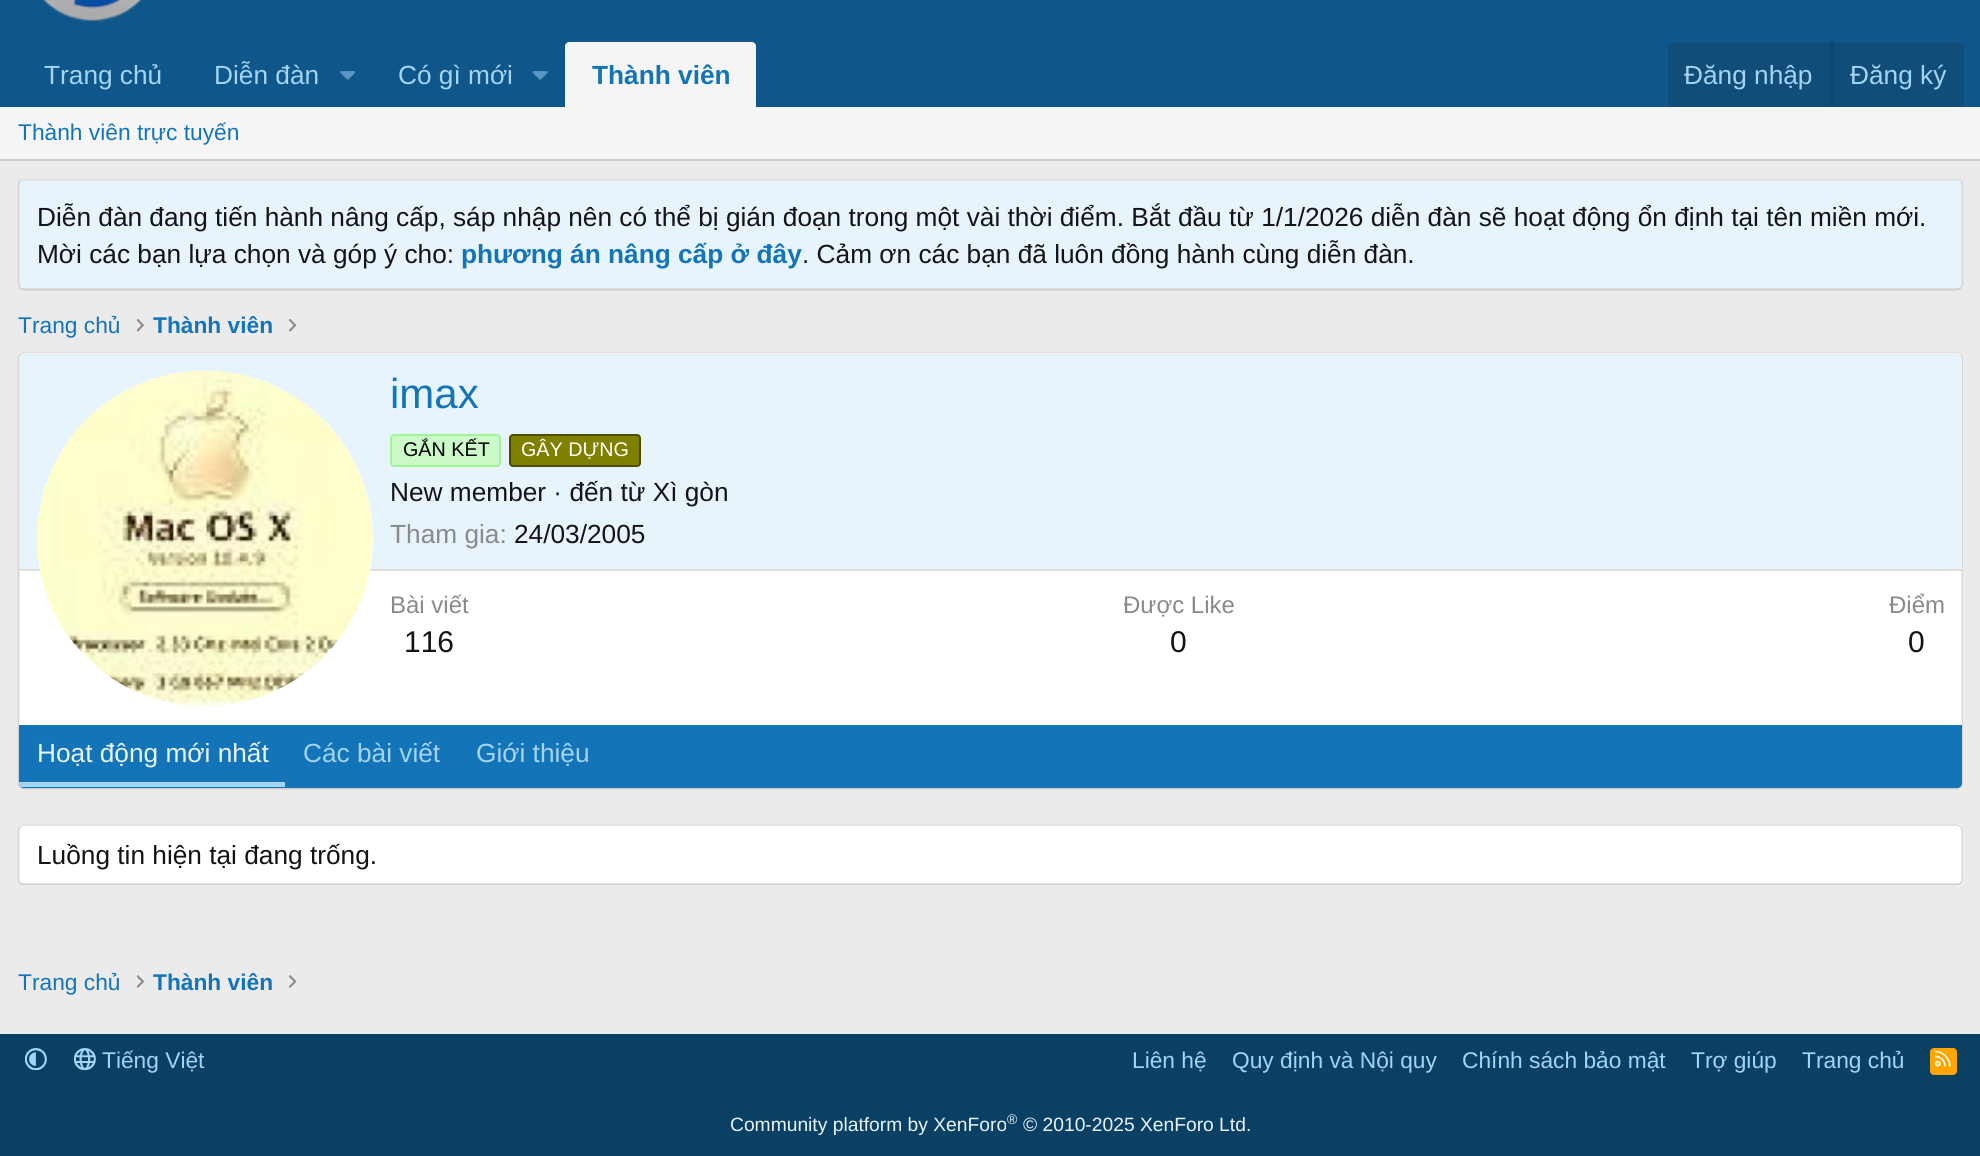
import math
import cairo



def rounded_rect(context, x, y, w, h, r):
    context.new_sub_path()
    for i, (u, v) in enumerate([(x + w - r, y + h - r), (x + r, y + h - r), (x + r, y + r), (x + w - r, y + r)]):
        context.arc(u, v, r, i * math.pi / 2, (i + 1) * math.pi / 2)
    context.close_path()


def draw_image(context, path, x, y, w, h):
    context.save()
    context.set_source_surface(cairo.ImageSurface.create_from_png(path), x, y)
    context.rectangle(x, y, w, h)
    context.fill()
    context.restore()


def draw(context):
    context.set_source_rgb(235 / 255, 235 / 255, 235 / 255)
    context.paint()
    context.set_source_rgb(15 / 255, 87 / 255, 138 / 255)
    context.rectangle(0, 0, 1980, 107)
    context.fill()
    draw_image(context, "images/1.png", 43, 0, 99, 21)
    draw_image(context, "images/2.png", 340, 71, 15, 9)
    draw_image(context, "images/3.png", 532, 71, 16, 9)
    context.set_source_rgb(245 / 255, 245 / 255, 245 / 255)
    context.new_path()
    context.move_to(569, 42)
    context.line_to(752, 42)
    context.curve_to(754, 42, 756, 44, 756, 46)
    context.line_to(756, 107)
    context.line_to(565, 107)
    context.line_to(565, 46)
    context.curve_to(565, 44, 567, 42, 569, 42)
    context.close_path()
    context.fill()
    context.set_source_rgb(16 / 255, 77 / 255, 120 / 255)
    context.new_path()
    context.move_to(1675, 42)
    context.line_to(1957, 42)
    context.curve_to(1961, 42, 1964, 45, 1964, 49)
    context.line_to(1964, 107)
    context.line_to(1668, 107)
    context.line_to(1668, 49)
    context.curve_to(1668, 45, 1671, 42, 1675, 42)
    context.close_path()
    context.fill()
    context.set_source_rgb(17 / 255, 68 / 255, 105 / 255)
    context.rectangle(1831, 42, 2, 65)
    context.fill()
    context.set_source_rgb(245 / 255, 245 / 255, 245 / 255)
    context.rectangle(0, 107, 1980, 52)
    context.fill()
    context.set_source_rgb(204 / 255, 204 / 255, 204 / 255)
    context.rectangle(0, 159, 1980, 2)
    context.fill()
    context.set_source_rgb(232 / 255, 244 / 255, 252 / 255)
    rounded_rect(context, 18, 179, 1946, 112, 7)
    context.fill()
    context.new_path()
    context.move_to(20, 181)
    context.curve_to(21.5, 180, 23, 179.5, 24.5, 179.5)
    context.line_to(1956.5, 179.5)
    context.curve_to(1958, 179.5, 1959.5, 180, 1961, 181)
    context.set_source_rgb(224 / 255, 224 / 255, 224 / 255)
    context.set_line_width(1.8)
    context.stroke()
    context.new_path()
    context.move_to(1961, 181)
    context.curve_to(1962, 182.5, 1962.5, 184, 1962.5, 185.5)
    context.line_to(1962.5, 283.5)
    context.curve_to(1962.5, 285, 1962, 286.5, 1961, 288)
    context.set_source_rgb(214 / 255, 214 / 255, 214 / 255)
    context.stroke()
    context.new_path()
    context.move_to(1961, 288)
    context.curve_to(1959.5, 289, 1958, 289.5, 1956.5, 289.5)
    context.line_to(24.5, 289.5)
    context.curve_to(23, 289.5, 21.5, 289, 20, 288)
    context.set_source_rgb(204 / 255, 204 / 255, 204 / 255)
    context.stroke()
    context.new_path()
    context.move_to(20, 288)
    context.curve_to(19, 286.5, 18.5, 285, 18.5, 283.5)
    context.line_to(18.5, 185.5)
    context.curve_to(18.5, 184, 19, 182.5, 20, 181)
    context.set_source_rgb(214 / 255, 214 / 255, 214 / 255)
    context.stroke()
    draw_image(context, "images/4.png", 137, 319, 7, 13)
    draw_image(context, "images/5.png", 289, 319, 7, 13)
    context.set_source_rgb(1, 1, 1)
    rounded_rect(context, 18, 352, 1946, 437, 7)
    context.fill()
    context.new_path()
    context.move_to(20, 354.5)
    context.curve_to(21.5, 353.5, 23, 352.5, 24.5, 352.5)
    context.line_to(1956.5, 352.5)
    context.curve_to(1958, 352.5, 1959.5, 353.5, 1961, 354.5)
    context.set_source_rgb(224 / 255, 224 / 255, 224 / 255)
    context.stroke()
    context.new_path()
    context.move_to(1961, 354.5)
    context.curve_to(1962, 355.5, 1962.5, 357, 1962.5, 359)
    context.line_to(1962.5, 782)
    context.curve_to(1962.5, 784, 1962, 785.5, 1961, 786.5)
    context.set_source_rgb(214 / 255, 214 / 255, 214 / 255)
    context.stroke()
    context.new_path()
    context.move_to(1961, 786.5)
    context.curve_to(1959.5, 787.5, 1958, 788.5, 1956.5, 788.5)
    context.line_to(24.5, 788.5)
    context.curve_to(23, 788.5, 21.5, 787.5, 20, 786.5)
    context.set_source_rgb(204 / 255, 204 / 255, 204 / 255)
    context.stroke()
    context.new_path()
    context.move_to(20, 786.5)
    context.curve_to(19, 785.5, 18.5, 784, 18.5, 782)
    context.line_to(18.5, 359)
    context.curve_to(18.5, 357, 19, 355.5, 20, 354.5)
    context.set_source_rgb(214 / 255, 214 / 255, 214 / 255)
    context.stroke()
    context.set_source_rgb(232 / 255, 244 / 255, 252 / 255)
    context.new_path()
    context.move_to(24, 354)
    context.line_to(1957, 354)
    context.curve_to(1960, 354, 1962, 356, 1962, 359)
    context.line_to(1962, 571)
    context.line_to(19, 571)
    context.line_to(19, 359)
    context.curve_to(19, 356, 21, 354, 24, 354)
    context.close_path()
    context.fill()
    context.set_source_rgb(224 / 255, 224 / 255, 224 / 255)
    context.rectangle(19, 569, 1943, 2)
    context.fill()
    context.set_source_rgb(1, 1, 1)
    context.arc(205, 539, 168, 0, 2 * math.pi)
    context.fill()
    draw_image(context, "images/6.png", 37, 370, 336, 336)
    context.set_source_rgb(204 / 255, 249 / 255, 200 / 255)
    rounded_rect(context, 391, 435, 109, 31, 3)
    context.fill_preserve()
    context.set_source_rgb(162 / 255, 244 / 255, 154 / 255)
    context.set_line_width(2)
    context.stroke()
    context.set_source_rgb(128 / 255, 128 / 255, 0)
    rounded_rect(context, 510, 435, 130, 31, 3)
    context.fill_preserve()
    context.set_source_rgb(77 / 255, 77 / 255, 0)
    context.stroke()
    context.set_source_rgb(20 / 255, 116 / 255, 184 / 255)
    context.new_path()
    context.move_to(19, 725)
    context.line_to(1962, 725)
    context.line_to(1962, 783)
    context.curve_to(1962, 786, 1960, 788, 1957, 788)
    context.line_to(24, 788)
    context.curve_to(21, 788, 19, 786, 19, 783)
    context.close_path()
    context.fill()
    context.save()
    context.new_path()
    context.move_to(19, 725)
    context.line_to(1962, 725)
    context.line_to(1962, 783)
    context.curve_to(1962, 786, 1960, 788, 1957, 788)
    context.line_to(24, 788)
    context.curve_to(21, 788, 19, 786, 19, 783)
    context.close_path()
    context.clip()
    context.set_source_rgb(163 / 255, 212 / 255, 245 / 255)
    context.rectangle(19, 782, 266, 5)
    context.fill()
    context.restore()
    context.set_source_rgb(1, 1, 1)
    rounded_rect(context, 18, 824, 1946, 62, 7)
    context.fill()
    context.new_path()
    context.move_to(20, 827)
    context.curve_to(21.5, 826, 23, 825, 24.5, 825)
    context.line_to(1956.5, 825)
    context.curve_to(1958, 825, 1959.5, 826, 1961, 827)
    context.set_source_rgb(224 / 255, 224 / 255, 224 / 255)
    context.set_line_width(1.8)
    context.stroke()
    context.new_path()
    context.move_to(1961, 827)
    context.curve_to(1962, 828, 1962.5, 829.5, 1962.5, 831)
    context.line_to(1962.5, 878.5)
    context.curve_to(1962.5, 880, 1962, 881.5, 1961, 883)
    context.set_source_rgb(214 / 255, 214 / 255, 214 / 255)
    context.stroke()
    context.new_path()
    context.move_to(1961, 883)
    context.curve_to(1959.5, 884, 1958, 884.5, 1956.5, 884.5)
    context.line_to(24.5, 884.5)
    context.curve_to(23, 884.5, 21.5, 884, 20, 883)
    context.set_source_rgb(204 / 255, 204 / 255, 204 / 255)
    context.stroke()
    context.new_path()
    context.move_to(20, 883)
    context.curve_to(19, 881.5, 18.5, 880, 18.5, 878.5)
    context.line_to(18.5, 831)
    context.curve_to(18.5, 829.5, 19, 828, 20, 827)
    context.set_source_rgb(214 / 255, 214 / 255, 214 / 255)
    context.stroke()
    draw_image(context, "images/7.png", 137, 975, 7, 13)
    draw_image(context, "images/8.png", 289, 975, 7, 13)
    context.set_source_rgb(11 / 255, 64 / 255, 101 / 255)
    context.rectangle(0, 1034, 1980, 122)
    context.fill()
    draw_image(context, "images/9.png", 24, 1048, 23, 23)
    draw_image(context, "images/10.png", 73, 1048, 23, 23)
    context.set_source_rgb(1, 165 / 255, 0)
    rounded_rect(context, 1930, 1048, 27, 27, 4)
    context.fill()
    draw_image(context, "images/11.png", 1934, 1050, 17, 17)
    context.select_font_face("Liberation Sans")
    context.set_font_size(26.25)
    context.set_source_rgb(163 / 255, 212 / 255, 245 / 255)
    context.move_to(44, 84)
    context.show_text("Trang chủ")
    context.move_to(214, 84)
    context.show_text("Diễn đàn")
    context.move_to(398, 84)
    context.show_text("Có gì mới")
    context.select_font_face("Liberation Sans", cairo.FontSlant.NORMAL, cairo.FontWeight.BOLD)
    context.set_source_rgb(20 / 255, 116 / 255, 184 / 255)
    context.move_to(592, 84)
    context.show_text("Thành viên")
    context.select_font_face("Liberation Sans")
    context.set_source_rgb(163 / 255, 212 / 255, 245 / 255)
    context.move_to(1684, 84)
    context.show_text("Đăng nhập")
    context.move_to(1850, 84)
    context.show_text("Đăng ký")
    context.set_font_size(22.75)
    context.set_source_rgb(20 / 255, 116 / 255, 184 / 255)
    context.move_to(18, 140)
    context.show_text("Thành viên trực tuyến")
    context.set_font_size(26.25)
    context.set_source_rgb(20 / 255, 20 / 255, 20 / 255)
    context.move_to(37, 226)
    context.show_text("Diễn đàn đang tiến hành nâng cấp, sáp nhập nên có thể bị gián đoạn trong một vài thời điểm. Bắt đầu từ 1/1/2026 diễn đàn sẽ hoạt động ổn định tại tên miền mới.")
    context.move_to(37, 263)
    context.show_text("Mời các bạn lựa chọn và góp ý cho:")
    context.select_font_face("Liberation Sans", cairo.FontSlant.NORMAL, cairo.FontWeight.BOLD)
    context.set_source_rgb(20 / 255, 116 / 255, 184 / 255)
    context.move_to(461, 263)
    context.show_text("phương án nâng cấp ở đây")
    context.select_font_face("Liberation Sans")
    context.set_source_rgb(20 / 255, 20 / 255, 20 / 255)
    context.move_to(802, 263)
    context.show_text(". Cảm ơn các bạn đã luôn đồng hành cùng diễn đàn.")
    context.set_font_size(22.75)
    context.set_source_rgb(20 / 255, 116 / 255, 184 / 255)
    context.move_to(18, 333)
    context.show_text("Trang chủ")
    context.select_font_face("Liberation Sans", cairo.FontSlant.NORMAL, cairo.FontWeight.BOLD)
    context.move_to(153, 333)
    context.show_text("Thành viên")
    context.select_font_face("Liberation Sans")
    context.set_font_size(42)
    context.move_to(390, 408)
    context.show_text("imax")
    context.set_font_size(19.75)
    context.set_source_rgb(0, 0, 0)
    context.move_to(403, 456)
    context.show_text("GẮN KẾT")
    context.set_source_rgb(1, 1, 1)
    context.move_to(521, 456)
    context.show_text("GÂY DỰNG")
    context.set_font_size(26.25)
    context.set_source_rgb(20 / 255, 20 / 255, 20 / 255)
    context.move_to(390, 501)
    context.show_text("New member · đến từ Xì gòn")
    context.set_source_rgb(138 / 255, 138 / 255, 138 / 255)
    context.move_to(390, 543)
    context.show_text("Tham gia:")
    context.set_source_rgb(20 / 255, 20 / 255, 20 / 255)
    context.move_to(514, 543)
    context.show_text("24/03/2005")
    context.set_font_size(24)
    context.set_source_rgb(138 / 255, 138 / 255, 138 / 255)
    context.move_to(390, 613)
    context.show_text("Bài viết")
    context.set_font_size(30)
    context.set_source_rgb(20 / 255, 20 / 255, 20 / 255)
    context.move_to(404, 652)
    context.show_text("116")
    context.save()
    context.rectangle(1124, 588, 110, 75)
    context.clip()
    context.set_font_size(24)
    context.set_source_rgb(138 / 255, 138 / 255, 138 / 255)
    context.move_to(1123, 613)
    context.show_text("Được Like")
    context.restore()
    context.move_to(1170, 652)
    context.show_text("0")
    context.set_font_size(24)
    context.set_source_rgb(138 / 255, 138 / 255, 138 / 255)
    context.move_to(1889, 613)
    context.show_text("Điểm")
    context.set_font_size(30)
    context.set_source_rgb(20 / 255, 20 / 255, 20 / 255)
    context.move_to(1908, 652)
    context.show_text("0")
    context.set_font_size(26.25)
    context.set_source_rgb(232 / 255, 244 / 255, 252 / 255)
    context.move_to(37, 762)
    context.show_text("Hoạt động mới nhất")
    context.set_source_rgb(163 / 255, 212 / 255, 245 / 255)
    context.move_to(303, 762)
    context.show_text("Các bài viết")
    context.move_to(476, 762)
    context.show_text("Giới thiệu")
    context.set_source_rgb(20 / 255, 20 / 255, 20 / 255)
    context.move_to(37, 864)
    context.show_text("Luồng tin hiện tại đang trống.")
    context.set_font_size(22.75)
    context.set_source_rgb(20 / 255, 116 / 255, 184 / 255)
    context.move_to(18, 990)
    context.show_text("Trang chủ")
    context.select_font_face("Liberation Sans", cairo.FontSlant.NORMAL, cairo.FontWeight.BOLD)
    context.move_to(153, 990)
    context.show_text("Thành viên")
    context.select_font_face("Liberation Sans")
    context.set_source_rgb(163 / 255, 212 / 255, 245 / 255)
    context.move_to(102, 1068)
    context.show_text("Tiếng Việt")
    context.move_to(1132, 1068)
    context.show_text("Liên hệ")
    context.move_to(1232, 1068)
    context.show_text("Quy định và Nội quy")
    context.move_to(1462, 1068)
    context.show_text("Chính sách bảo mật")
    context.move_to(1691, 1068)
    context.show_text("Trợ giúp")
    context.move_to(1802, 1068)
    context.show_text("Trang chủ")
    context.set_font_size(19.25)
    context.set_source_rgb(232 / 255, 244 / 255, 252 / 255)
    context.move_to(730, 1131)
    context.show_text("Community platform by XenForo")
    context.set_font_size(14)
    context.move_to(1007, 1124)
    context.show_text("®")
    context.set_font_size(19.25)
    context.move_to(1023, 1131)
    context.show_text("© 2010-2025 XenForo Ltd.")


surface = cairo.ImageSurface(cairo.Format.RGB24, 1980, 1156)
context = cairo.Context(surface)
options = cairo.FontOptions()
options.set_hint_metrics(cairo.HintMetrics.OFF)
options.set_hint_style(cairo.HintStyle.NONE)
context.set_font_options(options)
context.set_miter_limit(4)
draw(context)
surface.write_to_png("out.png")
